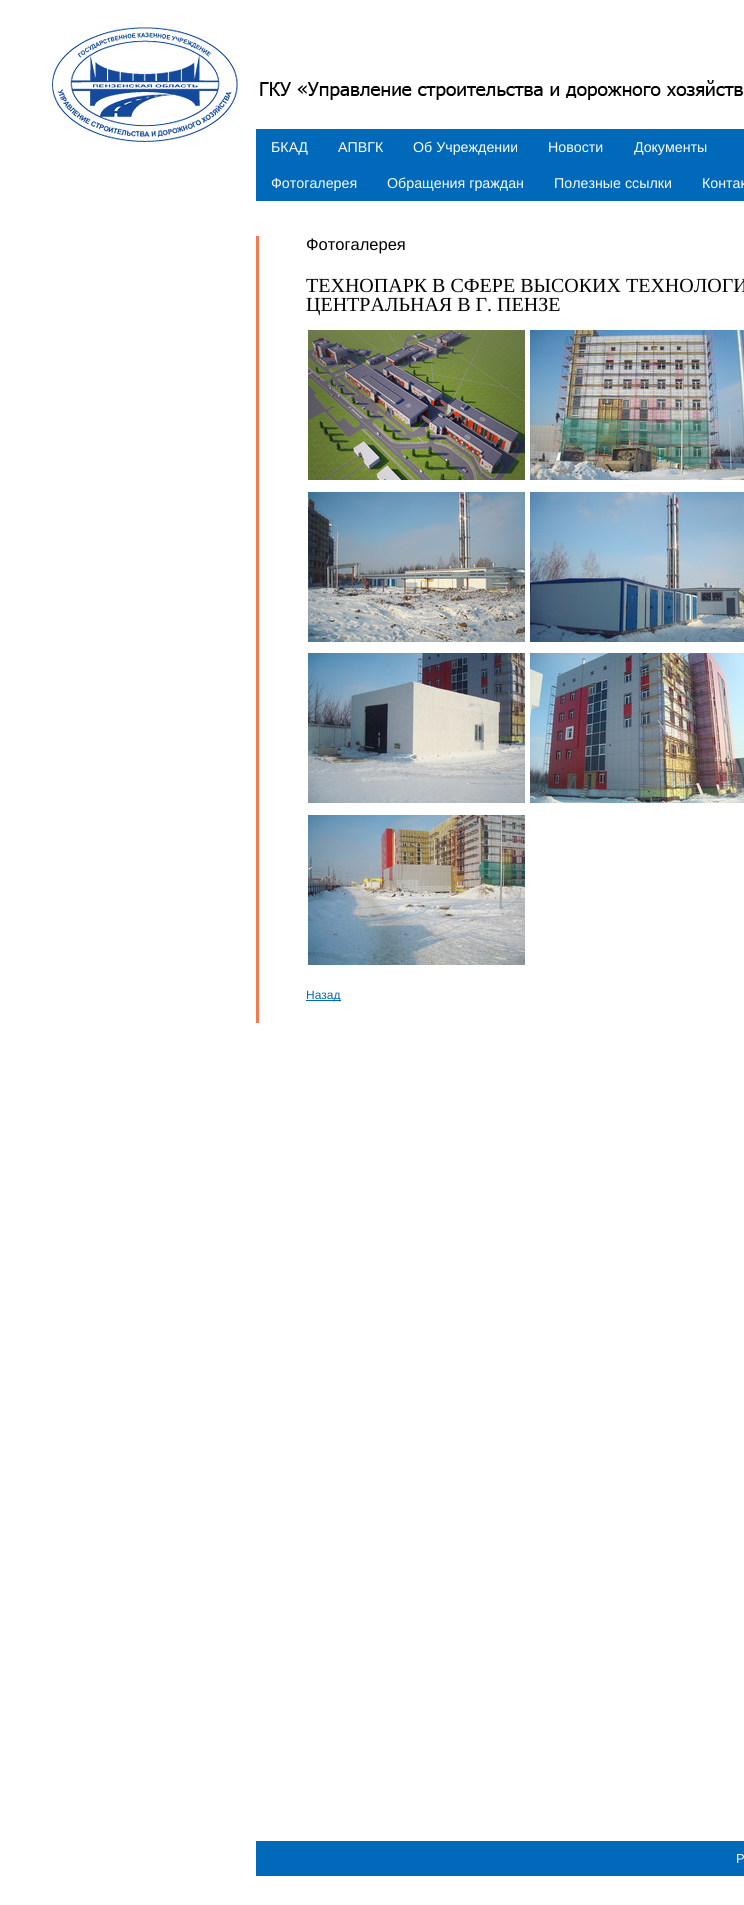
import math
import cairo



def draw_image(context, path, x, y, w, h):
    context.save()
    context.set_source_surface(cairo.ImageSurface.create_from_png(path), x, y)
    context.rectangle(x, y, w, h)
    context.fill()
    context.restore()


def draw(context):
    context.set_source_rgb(1, 1, 1)
    context.paint()
    draw_image(context, "images/1.png", 52, 27, 186, 115)
    draw_image(context, "images/2.png", 260, 80, 484, 20)
    context.set_source_rgb(0, 105 / 255, 186 / 255)
    context.rectangle(256, 129, 488, 72)
    context.fill()
    context.set_source_rgb(243 / 255, 124 / 255, 77 / 255)
    context.rectangle(256, 236, 3, 787)
    context.fill()
    draw_image(context, "images/3.png", 308, 330, 217, 150)
    draw_image(context, "images/4.png", 530, 330, 214, 150)
    draw_image(context, "images/5.png", 308, 492, 217, 150)
    draw_image(context, "images/6.png", 530, 492, 214, 150)
    draw_image(context, "images/7.png", 308, 653, 217, 150)
    draw_image(context, "images/8.png", 530, 653, 214, 150)
    draw_image(context, "images/9.png", 308, 815, 217, 150)
    context.set_source_rgb(0, 105 / 255, 186 / 255)
    context.rectangle(306, 1000, 35, 1)
    context.fill()
    context.rectangle(256, 1841, 488, 35)
    context.fill()
    context.select_font_face("Liberation Sans")
    context.set_font_size(14.25)
    context.set_source_rgb(1, 1, 1)
    context.move_to(271, 152)
    context.show_text("БКАД")
    context.move_to(338, 152)
    context.show_text("АПВГК")
    context.move_to(413, 152)
    context.show_text("Об Учреждении")
    context.move_to(548, 152)
    context.show_text("Новости")
    context.move_to(634, 152)
    context.show_text("Документы")
    context.move_to(271, 188)
    context.show_text("Фотогалерея")
    context.move_to(387, 188)
    context.show_text("Обращения граждан")
    context.move_to(554, 188)
    context.show_text("Полезные ссылки")
    context.move_to(702, 188)
    context.show_text("Контак")
    context.set_font_size(16.5)
    context.set_source_rgb(0, 0, 0)
    context.move_to(306, 250)
    context.show_text("Фотогалерея")
    context.select_font_face("Liberation Serif")
    context.set_font_size(20)
    context.move_to(306, 292)
    context.show_text("ТЕХНОПАРК В СФЕРЕ ВЫСОКИХ ТЕХНОЛОГИ")
    context.move_to(306, 311)
    context.show_text("ЦЕНТРАЛЬНАЯ В Г. ПЕНЗЕ")
    context.select_font_face("Liberation Sans")
    context.set_font_size(12)
    context.set_source_rgb(0, 105 / 255, 186 / 255)
    context.move_to(306, 999)
    context.show_text("Назад")
    context.set_font_size(13)
    context.set_source_rgb(1, 1, 1)
    context.move_to(736, 1863)
    context.show_text("Р")


surface = cairo.ImageSurface(cairo.Format.RGB24, 744, 1905)
context = cairo.Context(surface)
options = cairo.FontOptions()
options.set_hint_metrics(cairo.HintMetrics.OFF)
options.set_hint_style(cairo.HintStyle.NONE)
context.set_font_options(options)
context.set_miter_limit(4)
draw(context)
surface.write_to_png("out.png")
